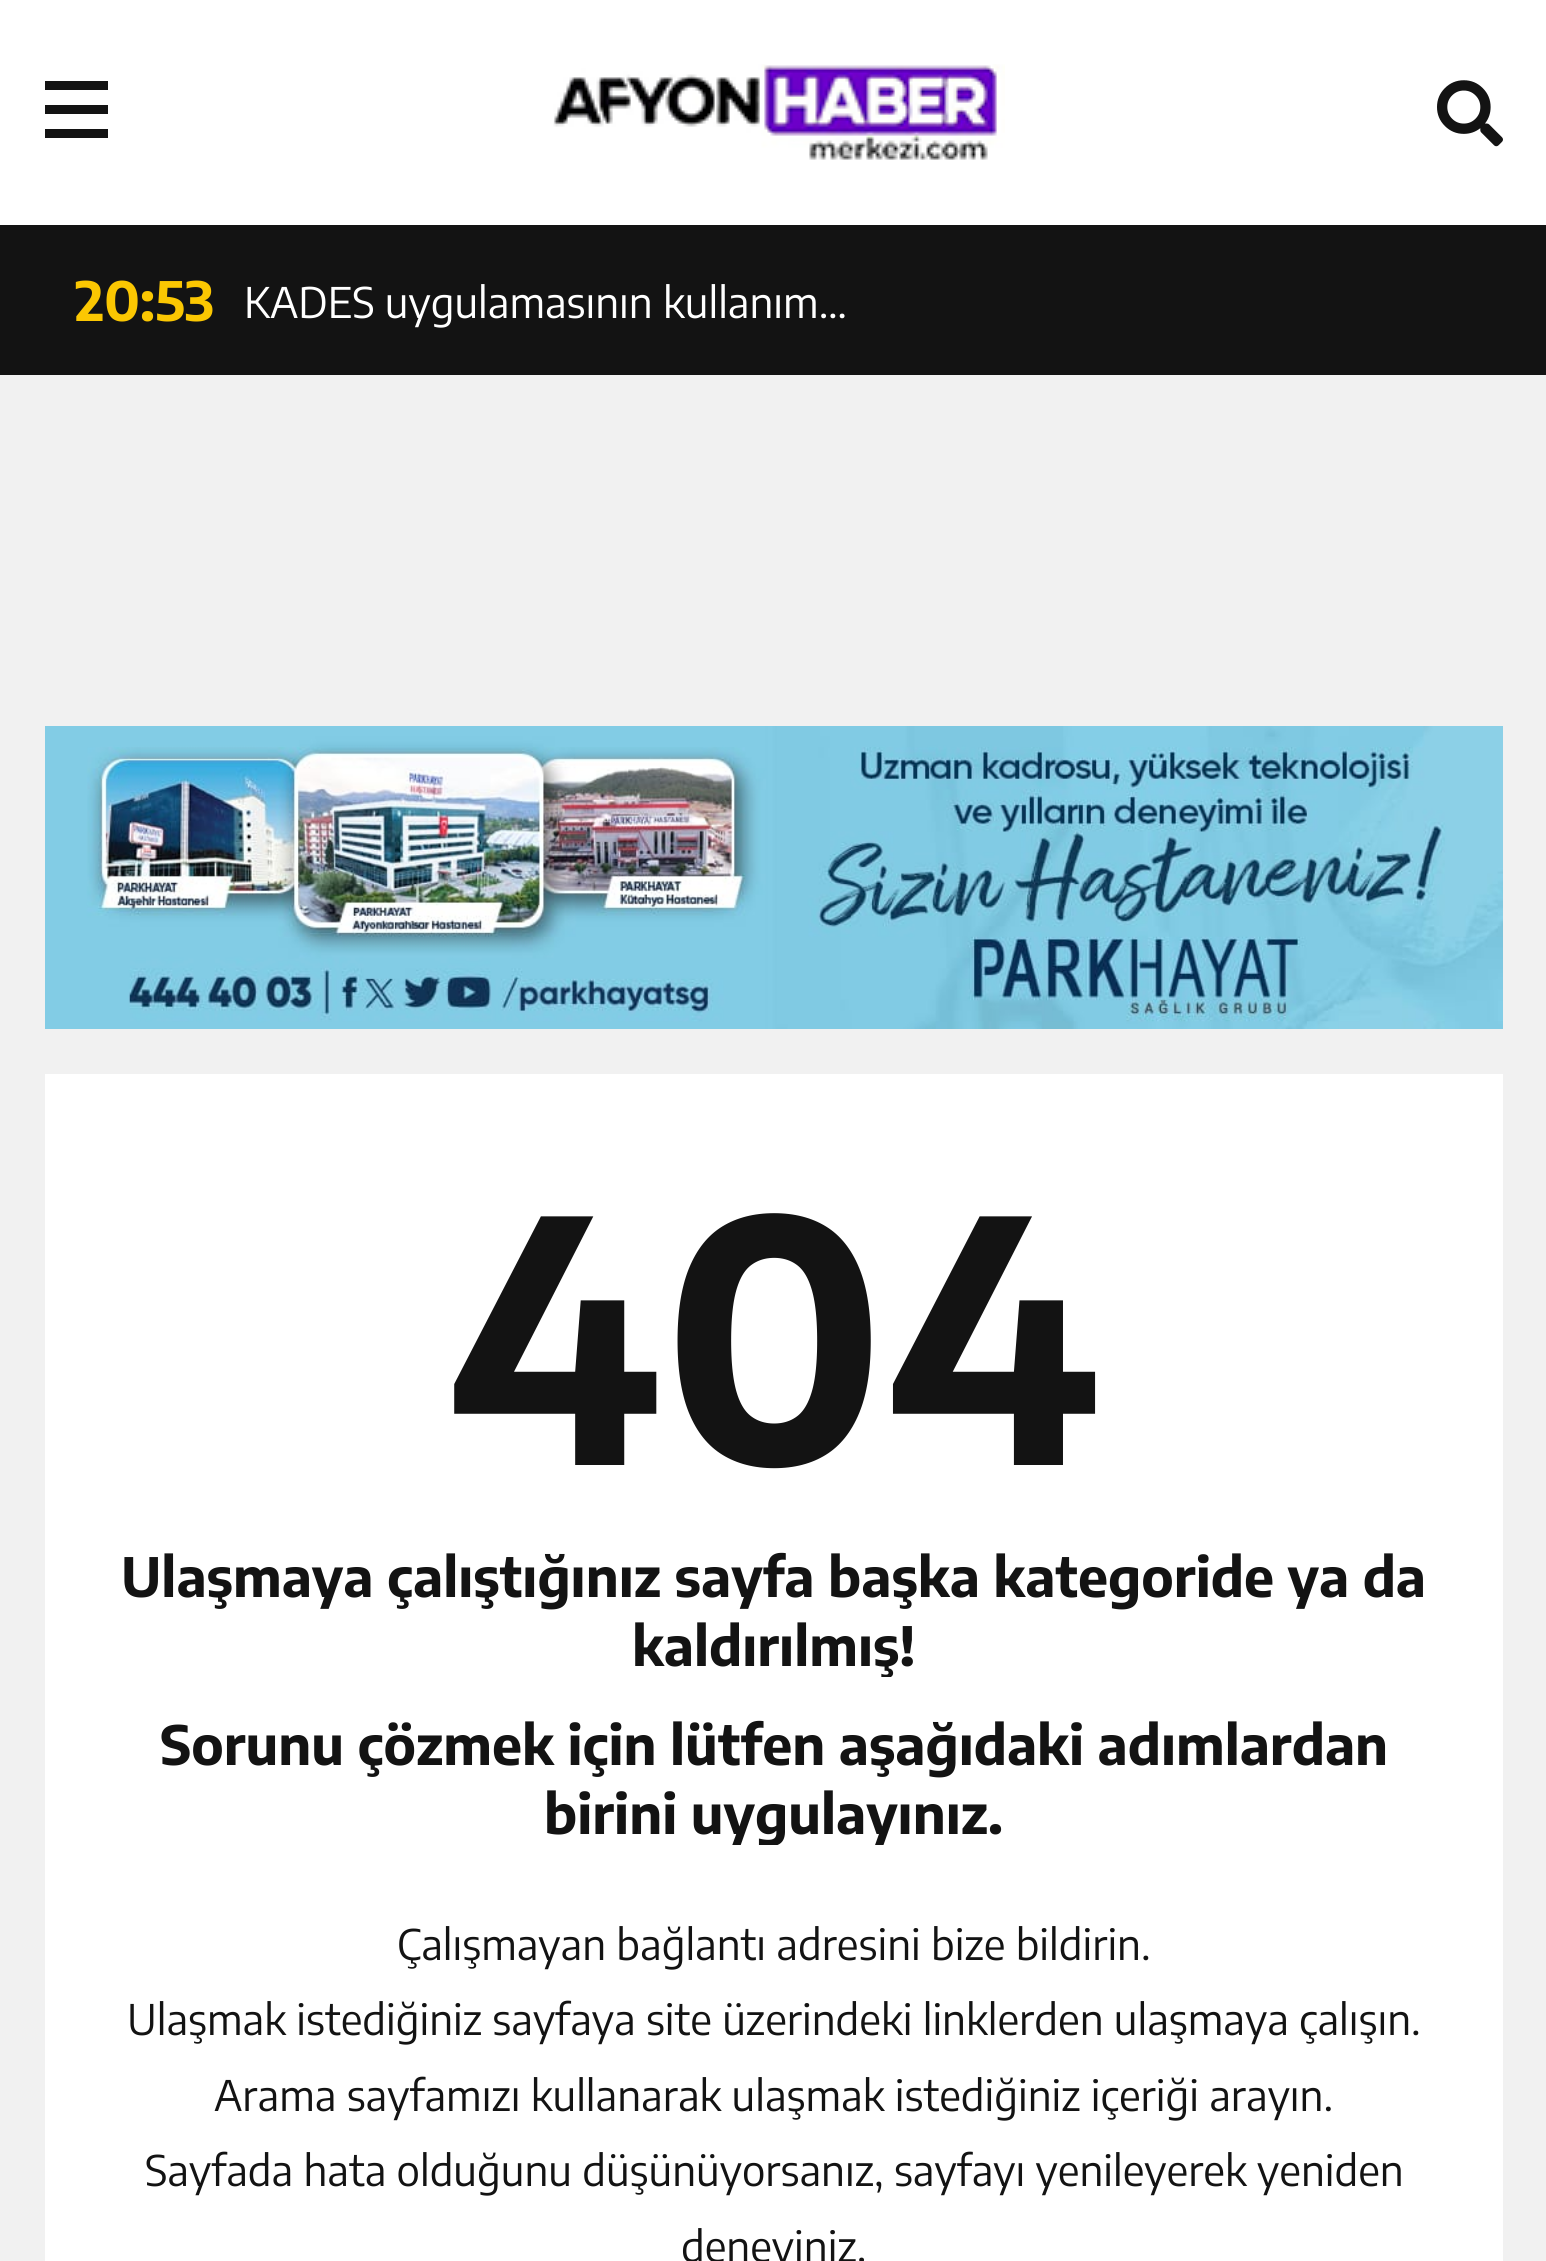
import math
import cairo



def draw_image(context, path, x, y, w, h):
    context.save()
    context.set_source_surface(cairo.ImageSurface.create_from_png(path), x, y)
    context.rectangle(x, y, w, h)
    context.fill()
    context.restore()


def draw(context):
    context.set_source_rgb(241 / 255, 241 / 255, 241 / 255)
    context.paint()
    context.set_source_rgb(1, 1, 1)
    context.rectangle(0, 0, 1546, 225)
    context.fill()
    context.set_source_rgb(19 / 255, 19 / 255, 19 / 255)
    context.rectangle(45, 105, 63, 9)
    context.fill()
    context.rectangle(45, 81, 63, 9)
    context.fill()
    context.rectangle(45, 129, 63, 9)
    context.fill()
    draw_image(context, "images/1.png", 553, 64, 452, 96)
    draw_image(context, "images/2.png", 1437, 80, 66, 67)
    context.rectangle(0, 225, 1546, 150)
    context.fill()
    draw_image(context, "images/3.png", 45, 726, 1458, 303)
    context.set_source_rgb(1, 1, 1)
    context.rectangle(45, 1074, 1458, 1187)
    context.fill()
    context.select_font_face("Encode Sans Condensed", cairo.FontSlant.NORMAL, cairo.FontWeight.BOLD)
    context.set_font_size(54)
    context.set_source_rgb(251 / 255, 199 / 255, 2 / 255)
    context.move_to(75, 321)
    context.show_text("20:53")
    context.select_font_face("Encode Sans Condensed")
    context.set_font_size(42)
    context.set_source_rgb(1, 1, 1)
    context.move_to(244, 318)
    context.show_text("KADES uygulamasının kullanım…")
    context.select_font_face("Encode Sans Condensed", cairo.FontSlant.NORMAL, cairo.FontWeight.BOLD)
    context.set_font_size(336)
    context.set_source_rgb(19 / 255, 19 / 255, 19 / 255)
    context.move_to(448, 1465)
    context.show_text("404")
    context.set_font_size(54)
    context.move_to(121, 1597)
    context.show_text("Ulaşmaya çalıştığınız sayfa başka kategoride ya da")
    context.save()
    context.rectangle(90, 1539, 1368, 138)
    context.clip()
    context.move_to(632, 1666)
    context.show_text("kaldırılmış!")
    context.restore()
    context.move_to(160, 1765)
    context.show_text("Sorunu çözmek için lütfen aşağıdaki adımlardan")
    context.save()
    context.rectangle(90, 1707, 1368, 138)
    context.clip()
    context.move_to(544, 1834)
    context.show_text("birini uygulayınız.")
    context.restore()
    context.select_font_face("Encode Sans Condensed")
    context.set_font_size(42)
    context.move_to(397, 1960)
    context.show_text("Çalışmayan bağlantı adresini bize bildirin.")
    context.move_to(127, 2035)
    context.show_text("Ulaşmak istediğiniz sayfaya site üzerindeki linklerden ulaşmaya çalışın.")
    context.move_to(214, 2111)
    context.show_text("Arama sayfamızı kullanarak ulaşmak istediğiniz içeriği arayın.")
    context.move_to(145, 2186)
    context.show_text("Sayfada hata olduğunu düşünüyorsanız, sayfayı yenileyerek yeniden")
    context.move_to(681, 2262)
    context.show_text("deneyiniz.")


surface = cairo.ImageSurface(cairo.Format.RGB24, 1546, 2261)
context = cairo.Context(surface)
options = cairo.FontOptions()
options.set_hint_metrics(cairo.HintMetrics.OFF)
options.set_hint_style(cairo.HintStyle.NONE)
context.set_font_options(options)
context.set_miter_limit(4)
draw(context)
surface.write_to_png("out.png")
